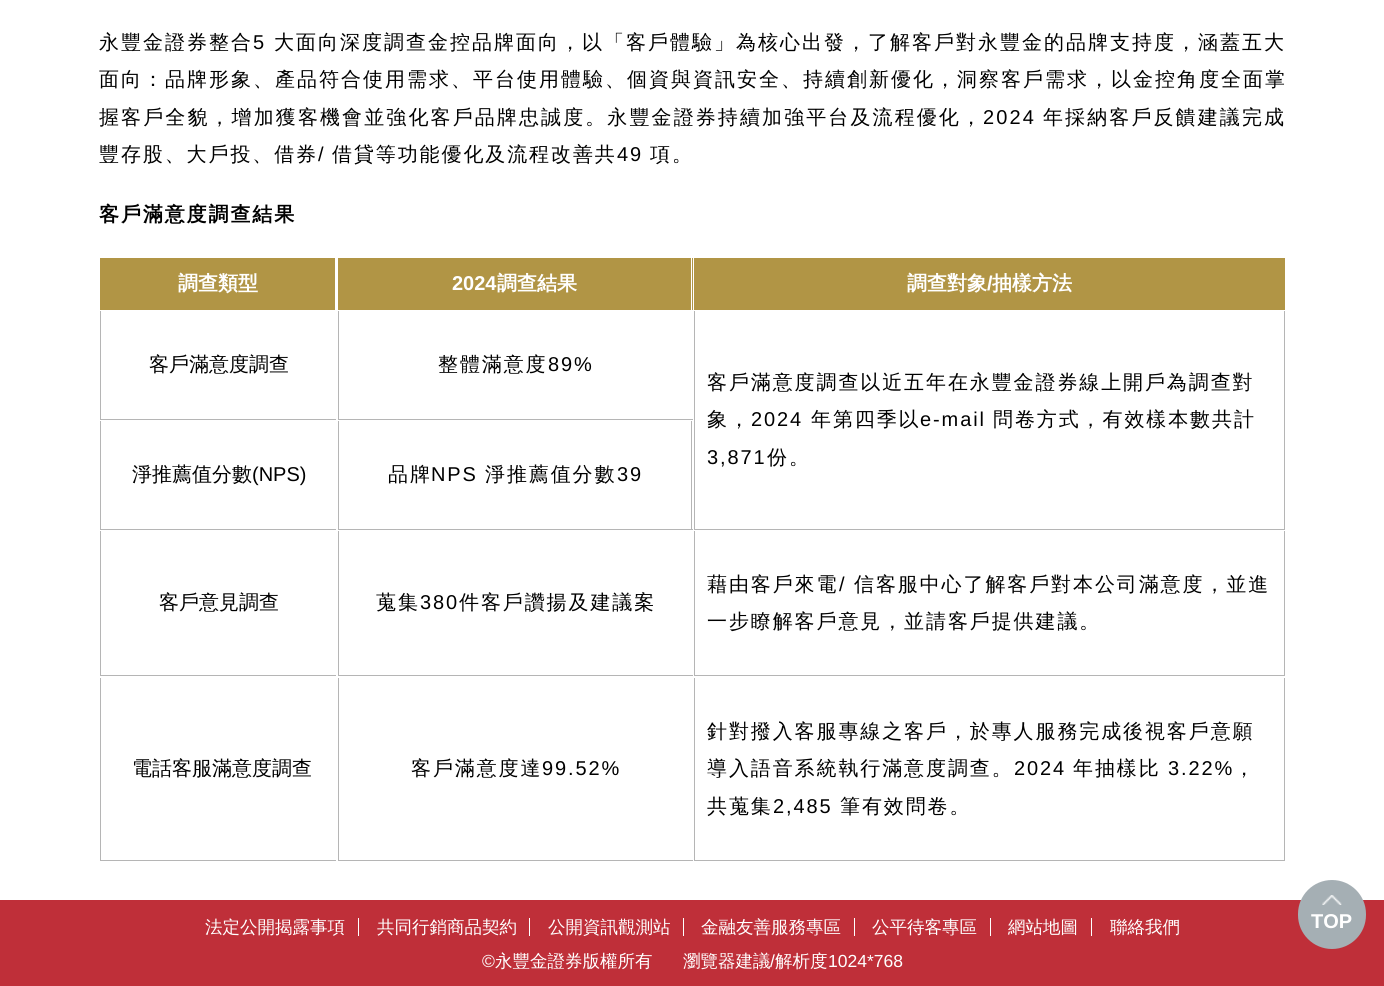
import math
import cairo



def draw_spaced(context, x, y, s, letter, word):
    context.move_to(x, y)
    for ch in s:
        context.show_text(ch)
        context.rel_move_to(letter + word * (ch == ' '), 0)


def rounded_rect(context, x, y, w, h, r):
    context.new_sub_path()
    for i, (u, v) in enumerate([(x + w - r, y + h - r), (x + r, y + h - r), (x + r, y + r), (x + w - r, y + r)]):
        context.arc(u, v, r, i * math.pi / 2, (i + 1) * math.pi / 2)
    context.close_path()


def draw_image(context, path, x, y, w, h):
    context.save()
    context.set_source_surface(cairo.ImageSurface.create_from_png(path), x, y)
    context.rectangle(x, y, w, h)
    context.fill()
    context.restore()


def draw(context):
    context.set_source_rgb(1, 1, 1)
    context.paint()
    context.set_source_rgb(177 / 255, 149 / 255, 69 / 255)
    context.rectangle(100, 258, 235, 52)
    context.fill()
    context.rectangle(338, 258, 355, 52)
    context.fill()
    context.set_source_rgb(1, 1, 1)
    context.rectangle(691, 258, 1, 52)
    context.fill()
    context.set_source_rgb(177 / 255, 149 / 255, 69 / 255)
    context.rectangle(694, 258, 591, 52)
    context.fill()
    context.set_source_rgb(181 / 255, 181 / 255, 181 / 255)
    context.rectangle(100, 419, 236, 1)
    context.fill()
    context.rectangle(100, 311, 1, 109)
    context.fill()
    context.rectangle(338, 419, 355, 1)
    context.fill()
    context.rectangle(338, 311, 1, 109)
    context.fill()
    context.rectangle(1284, 311, 1, 219)
    context.fill()
    context.rectangle(694, 529, 591, 1)
    context.fill()
    context.rectangle(694, 311, 1, 219)
    context.fill()
    context.rectangle(100, 529, 236, 1)
    context.fill()
    context.rectangle(100, 421, 1, 109)
    context.fill()
    context.rectangle(691, 421, 1, 109)
    context.fill()
    context.rectangle(338, 529, 355, 1)
    context.fill()
    context.rectangle(338, 421, 1, 109)
    context.fill()
    context.rectangle(100, 675, 236, 1)
    context.fill()
    context.rectangle(100, 531, 1, 145)
    context.fill()
    context.rectangle(338, 675, 355, 1)
    context.fill()
    context.rectangle(338, 531, 1, 145)
    context.fill()
    context.rectangle(1284, 531, 1, 145)
    context.fill()
    context.rectangle(694, 675, 591, 1)
    context.fill()
    context.rectangle(694, 531, 1, 145)
    context.fill()
    context.rectangle(100, 860, 236, 1)
    context.fill()
    context.rectangle(100, 678, 1, 183)
    context.fill()
    context.rectangle(338, 860, 355, 1)
    context.fill()
    context.rectangle(338, 678, 1, 183)
    context.fill()
    context.rectangle(1284, 678, 1, 183)
    context.fill()
    context.rectangle(694, 860, 591, 1)
    context.fill()
    context.rectangle(694, 678, 1, 183)
    context.fill()
    context.set_source_rgb(191 / 255, 47 / 255, 57 / 255)
    context.rectangle(0, 900, 1384, 86)
    context.fill()
    context.set_source_rgb(165 / 255, 175 / 255, 180 / 255)
    rounded_rect(context, 1298, 880, 68, 69, 34)
    context.fill()
    draw_image(context, "images/1.png", 1322, 895, 20, 10)
    context.set_source_rgb(1, 1, 1)
    context.rectangle(358, 918, 1, 18)
    context.fill()
    context.rectangle(529, 918, 1, 18)
    context.fill()
    context.rectangle(683, 918, 1, 18)
    context.fill()
    context.rectangle(854, 918, 1, 18)
    context.fill()
    context.rectangle(990, 918, 1, 18)
    context.fill()
    context.rectangle(1091, 918, 1, 18)
    context.fill()
    context.select_font_face("WenQuanYi Zen Hei Medium")
    context.set_font_size(20)
    context.set_source_rgb(0, 0, 0)
    draw_spaced(context, 99, 49, "永豐金證券整合", 2, 0)
    context.select_font_face("Liberation Sans")
    draw_spaced(context, 253, 49, "5", 2, 0)
    context.select_font_face("WenQuanYi Zen Hei Medium")
    draw_spaced(context, 274, 49, "大面向深度調查金控品牌面向，以「客戶體驗」為核心出發，了解客戶對永豐金的品牌支持度，涵蓋五大", 2, 0)
    draw_spaced(context, 99, 86, "面向：品牌形象、產品符合使用需求、平台使用體驗、個資與資訊安全、持續創新優化，洞察客戶需求，以金控角度全面掌", 2, 0)
    draw_spaced(context, 99, 124, "握客戶全貌，增加獲客機會並強化客戶品牌忠誠度。永豐金證券持續加強平台及流程優化，", 2.1, 0)
    context.select_font_face("Liberation Sans")
    draw_spaced(context, 983, 124, "2024", 2.1, 0)
    context.select_font_face("WenQuanYi Zen Hei Medium")
    draw_spaced(context, 1043, 124, "年採納客戶反饋建議完成", 2.1, 0)
    draw_spaced(context, 99, 161, "豐存股、大戶投、借券", 1.9, 0)
    context.select_font_face("Liberation Sans")
    draw_spaced(context, 318, 161, "/", 1.9, 0)
    context.select_font_face("WenQuanYi Zen Hei Medium")
    draw_spaced(context, 332, 161, "借貸等功能優化及流程改善共", 1.9, 0)
    context.select_font_face("Liberation Sans")
    draw_spaced(context, 617, 161, "49", 1.9, 0)
    context.select_font_face("WenQuanYi Zen Hei Medium")
    draw_spaced(context, 650, 161, "項。", 1.9, 0)
    context.select_font_face("WenQuanYi Zen Hei", cairo.FontSlant.NORMAL, cairo.FontWeight.BOLD)
    draw_spaced(context, 99, 221, "客戶滿意度調查結果", 1.9, 0)
    context.set_source_rgb(1, 1, 1)
    context.move_to(178, 290)
    context.show_text("調查類型")
    context.select_font_face("Liberation Sans", cairo.FontSlant.NORMAL, cairo.FontWeight.BOLD)
    context.move_to(452, 290)
    context.show_text("2024")
    context.select_font_face("WenQuanYi Zen Hei", cairo.FontSlant.NORMAL, cairo.FontWeight.BOLD)
    context.move_to(497, 290)
    context.show_text("調查結果")
    context.move_to(907, 290)
    context.show_text("調查對象")
    context.select_font_face("Liberation Sans", cairo.FontSlant.NORMAL, cairo.FontWeight.BOLD)
    context.move_to(987, 290)
    context.show_text("/")
    context.select_font_face("WenQuanYi Zen Hei", cairo.FontSlant.NORMAL, cairo.FontWeight.BOLD)
    context.move_to(992, 290)
    context.show_text("抽樣方法")
    context.select_font_face("WenQuanYi Zen Hei Medium")
    context.set_source_rgb(0, 0, 0)
    context.move_to(149, 371)
    context.show_text("客戶滿意度調查")
    draw_spaced(context, 438, 371, "整體滿意度", 1.9, 0)
    context.select_font_face("Liberation Sans")
    draw_spaced(context, 548, 371, "89%", 1.9, 0)
    context.select_font_face("WenQuanYi Zen Hei Medium")
    draw_spaced(context, 707, 389, "客戶滿意度調查以近五年在永豐金證券線上開戶為調查對", 1.9, 0)
    draw_spaced(context, 707, 426, "象，", 1.9, 0)
    context.select_font_face("Liberation Sans")
    draw_spaced(context, 751, 426, "2024", 1.9, 0)
    context.select_font_face("WenQuanYi Zen Hei Medium")
    draw_spaced(context, 811, 426, "年第四季以", 1.9, 0)
    context.select_font_face("Liberation Sans")
    draw_spaced(context, 920, 426, "e-mail", 1.9, 0)
    context.select_font_face("WenQuanYi Zen Hei Medium")
    draw_spaced(context, 993, 426, "問卷方式，有效樣本數共計", 1.9, 0)
    context.select_font_face("Liberation Sans")
    draw_spaced(context, 707, 464, "3,871", 1.9, 0)
    context.select_font_face("WenQuanYi Zen Hei Medium")
    draw_spaced(context, 767, 464, "份。", 1.9, 0)
    context.move_to(132, 481)
    context.show_text("淨推薦值分數")
    context.select_font_face("Liberation Sans")
    context.move_to(252, 481)
    context.show_text("(NPS)")
    context.select_font_face("WenQuanYi Zen Hei Medium")
    draw_spaced(context, 388, 481, "品牌", 1.9, 0)
    context.select_font_face("Liberation Sans")
    draw_spaced(context, 431, 481, "NPS", 1.9, 0)
    context.select_font_face("WenQuanYi Zen Hei Medium")
    draw_spaced(context, 485, 481, "淨推薦值分數", 1.9, 0)
    context.select_font_face("Liberation Sans")
    draw_spaced(context, 617, 481, "39", 1.9, 0)
    context.select_font_face("WenQuanYi Zen Hei Medium")
    context.move_to(159, 609)
    context.show_text("客戶意見調查")
    draw_spaced(context, 376, 609, "蒐集", 1.9, 0)
    context.select_font_face("Liberation Sans")
    draw_spaced(context, 420, 609, "380", 1.9, 0)
    context.select_font_face("WenQuanYi Zen Hei Medium")
    draw_spaced(context, 459, 609, "件客戶讚揚及建議案", 1.9, 0)
    draw_spaced(context, 707, 591, "藉由客戶來電", 1.9, 0)
    context.select_font_face("Liberation Sans")
    draw_spaced(context, 839, 591, "/", 1.9, 0)
    context.select_font_face("WenQuanYi Zen Hei Medium")
    draw_spaced(context, 854, 591, "信客服中心了解客戶對本公司滿意度，並進", 1.9, 0)
    draw_spaced(context, 707, 628, "一步瞭解客戶意見，並請客戶提供建議。", 1.9, 0)
    context.move_to(132, 775)
    context.show_text("電話客服滿意度調查")
    draw_spaced(context, 411, 775, "客戶滿意度達", 1.9, 0)
    context.select_font_face("Liberation Sans")
    draw_spaced(context, 542, 775, "99.52%", 1.9, 0)
    context.select_font_face("WenQuanYi Zen Hei Medium")
    draw_spaced(context, 707, 738, "針對撥入客服專線之客戶，於專人服務完成後視客戶意願", 1.9, 0)
    draw_spaced(context, 707, 775, "導入語音系統執行滿意度調查。", 1.9, 0)
    context.select_font_face("Liberation Sans")
    draw_spaced(context, 1014, 775, "2024", 1.9, 0)
    context.select_font_face("WenQuanYi Zen Hei Medium")
    draw_spaced(context, 1073, 775, "年抽樣比", 1.9, 0)
    context.select_font_face("Liberation Sans")
    draw_spaced(context, 1168, 775, "3.22%", 1.9, 0)
    context.select_font_face("WenQuanYi Zen Hei Medium")
    draw_spaced(context, 1234, 775, "，", 1.9, 0)
    draw_spaced(context, 707, 813, "共蒐集", 1.9, 0)
    context.select_font_face("Liberation Sans")
    draw_spaced(context, 773, 813, "2,485", 1.9, 0)
    context.select_font_face("WenQuanYi Zen Hei Medium")
    draw_spaced(context, 840, 813, "筆有效問卷。", 1.9, 0)
    context.select_font_face("Liberation Sans", cairo.FontSlant.NORMAL, cairo.FontWeight.BOLD)
    context.set_source_rgb(1, 1, 1)
    context.move_to(1311, 928)
    context.show_text("TOP")
    context.select_font_face("WenQuanYi Zen Hei Medium")
    context.set_font_size(17.5)
    context.move_to(205, 933)
    context.show_text("法定公開揭露事項")
    context.move_to(377, 933)
    context.show_text("共同行銷商品契約")
    context.move_to(548, 933)
    context.show_text("公開資訊觀測站")
    context.move_to(701, 933)
    context.show_text("金融友善服務專區")
    context.move_to(872, 933)
    context.show_text("公平待客專區")
    context.move_to(1008, 933)
    context.show_text("網站地圖")
    context.move_to(1110, 933)
    context.show_text("聯絡我們")
    context.select_font_face("Liberation Sans")
    context.move_to(482, 967)
    context.show_text("©")
    context.select_font_face("WenQuanYi Zen Hei Medium")
    context.move_to(495, 967)
    context.show_text("永豐金證券版權所有")
    context.move_to(683, 967)
    context.show_text("瀏覽器建議")
    context.select_font_face("Liberation Sans")
    context.move_to(770, 967)
    context.show_text("/")
    context.select_font_face("WenQuanYi Zen Hei Medium")
    context.move_to(775, 967)
    context.show_text("解析度")
    context.select_font_face("Liberation Sans")
    context.move_to(828, 967)
    context.show_text("1024*768")


surface = cairo.ImageSurface(cairo.Format.RGB24, 1384, 986)
context = cairo.Context(surface)
options = cairo.FontOptions()
options.set_hint_metrics(cairo.HintMetrics.OFF)
options.set_hint_style(cairo.HintStyle.NONE)
context.set_font_options(options)
context.set_miter_limit(4)
draw(context)
surface.write_to_png("out.png")
